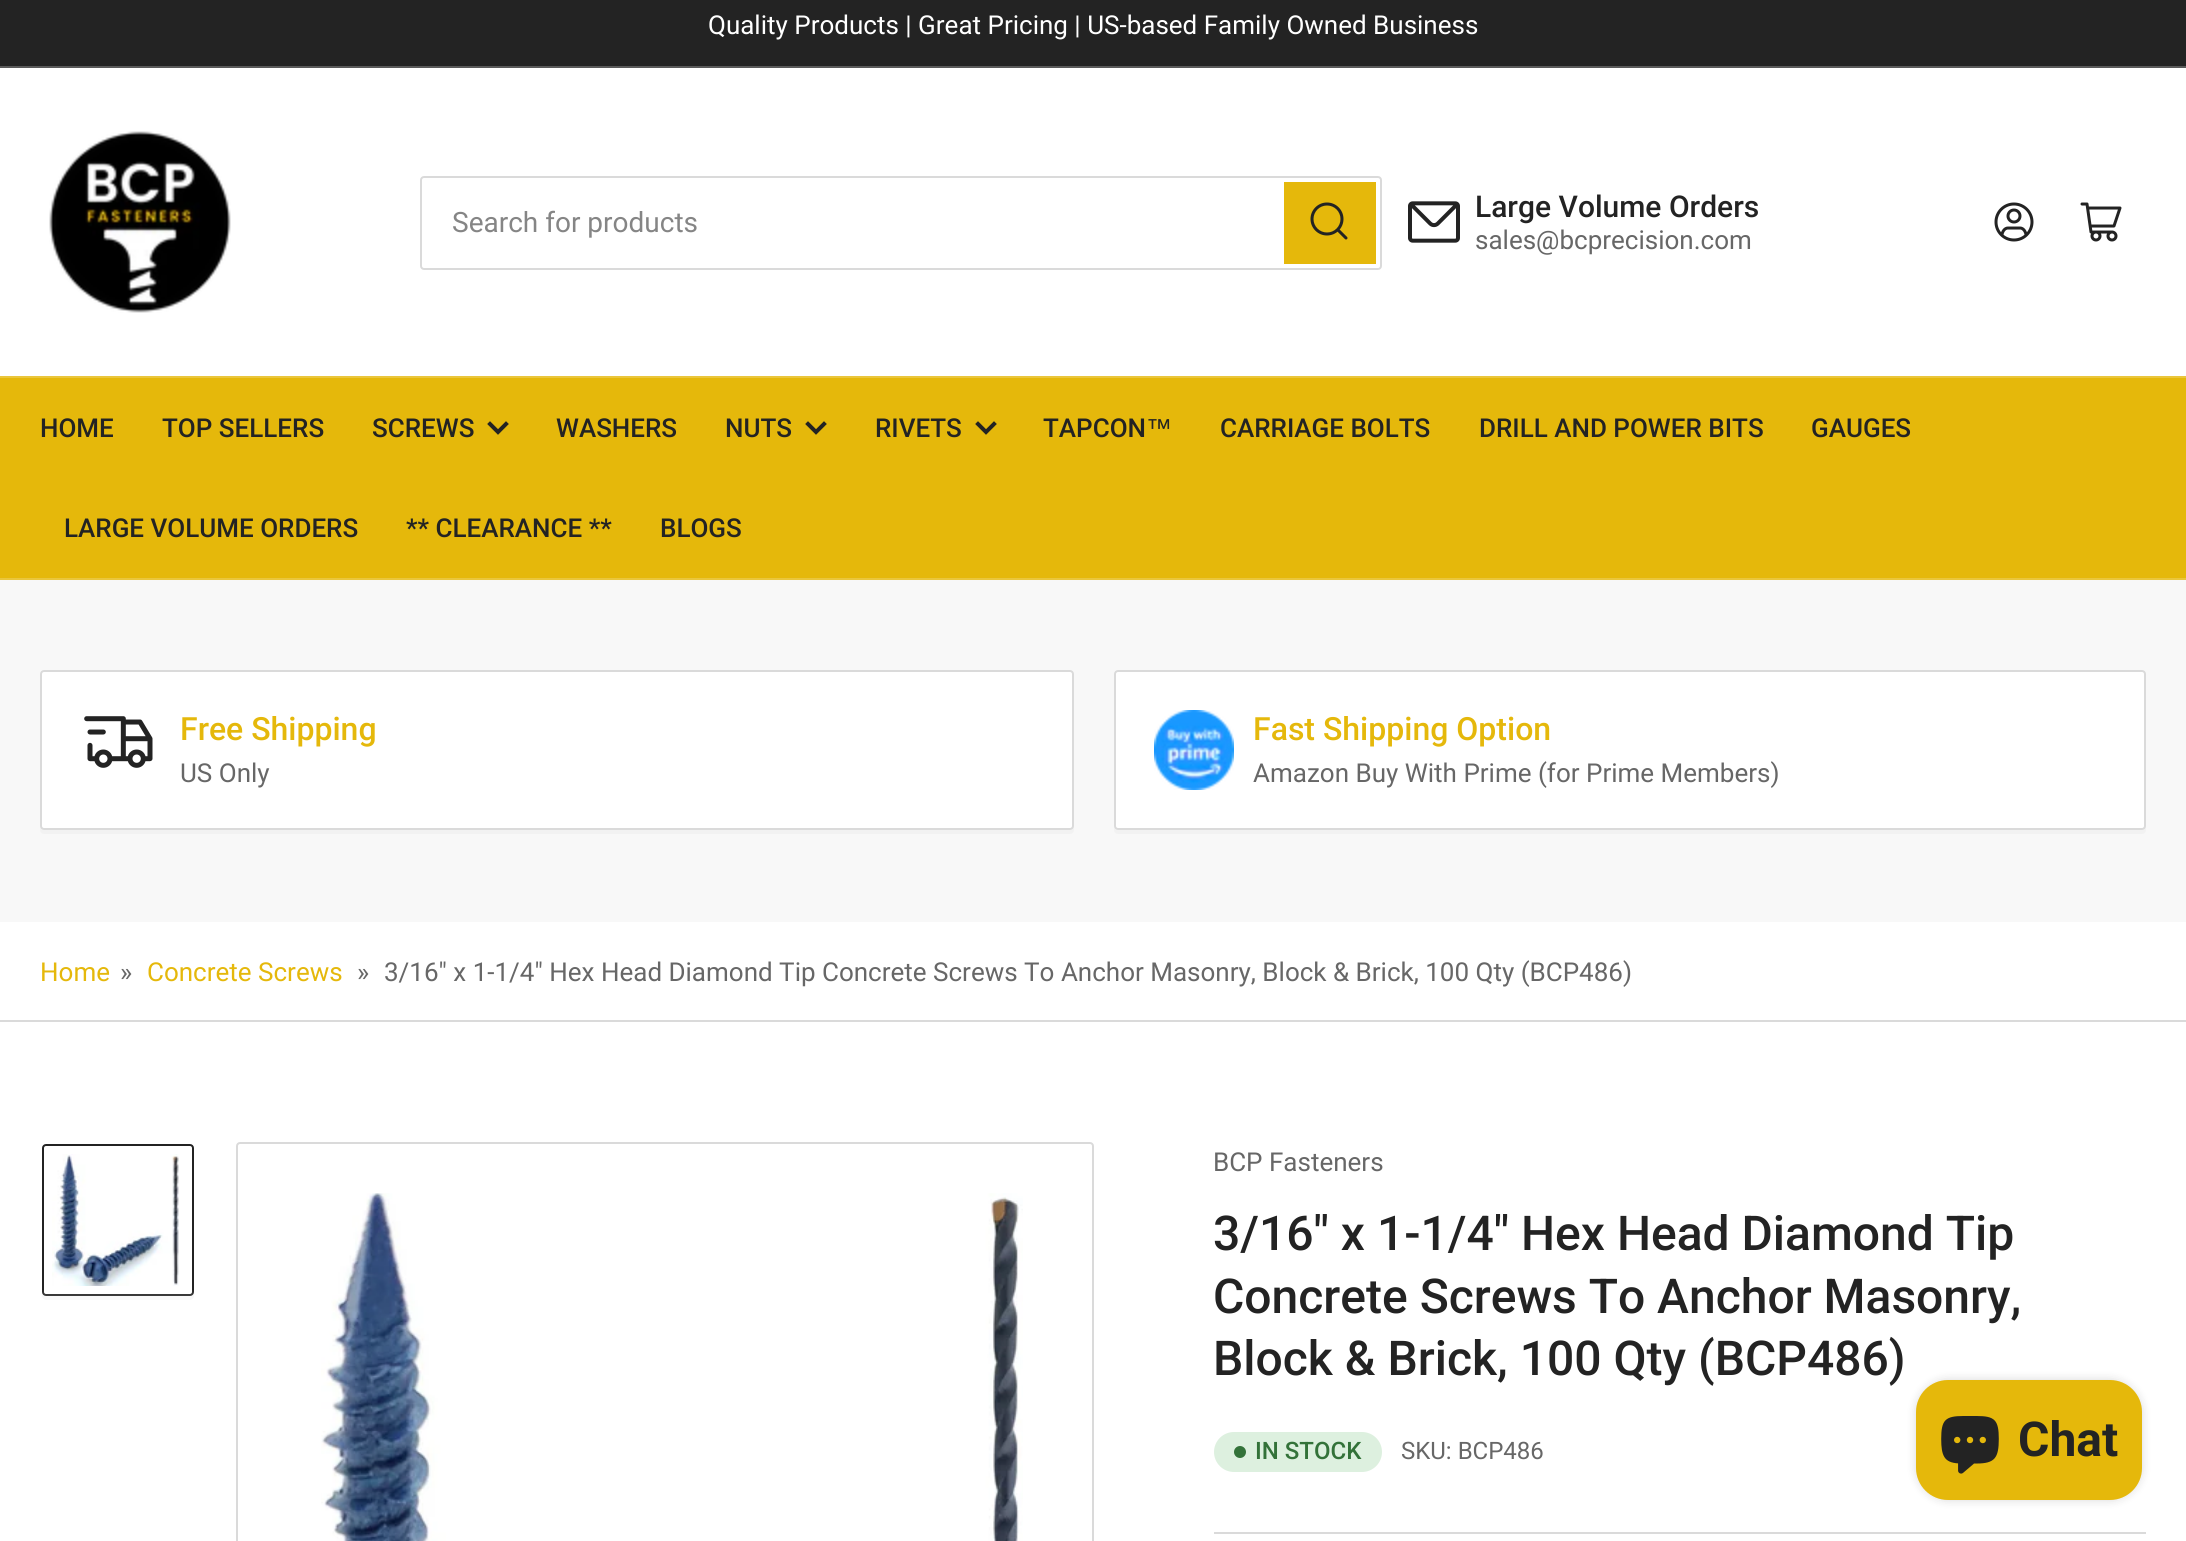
import math
import cairo



def rounded_rect(context, x, y, w, h, r):
    context.new_sub_path()
    for i, (u, v) in enumerate([(x + w - r, y + h - r), (x + r, y + h - r), (x + r, y + r), (x + w - r, y + r)]):
        context.arc(u, v, r, i * math.pi / 2, (i + 1) * math.pi / 2)
    context.close_path()


def draw_shadow(context, x, y, w, h, r, blur, alpha):
    context.push_group_with_content(cairo.Content.ALPHA)
    context.set_operator(cairo.Operator.SOURCE)
    for i in range(15, -16, -2):
        e = blur * i / 6
        if min(w, h) + 2 * e > 0:
            context.set_source_rgba(0, 0, 0, alpha * math.erfc((i - 1) / 8.5) / 2)
            rounded_rect(context, x - e, y - e, w + 2 * e, h + 2 * e, max(0, min(r + e + blur * .6, min(w, h) / 2 + e)))
            context.fill()
    context.mask(context.pop_group())


def draw_image(context, path, x, y, w, h):
    context.save()
    context.set_source_surface(cairo.ImageSurface.create_from_png(path), x, y)
    context.rectangle(x, y, w, h)
    context.fill()
    context.restore()


def draw(context):
    context.set_source_rgb(1, 1, 1)
    context.paint()
    context.set_source_rgb(35 / 255, 35 / 255, 35 / 255)
    context.rectangle(0, 0, 2186, 66)
    context.fill()
    context.set_source_rgb(90 / 255, 90 / 255, 90 / 255)
    context.rectangle(0, 66, 2186, 2)
    context.fill()
    draw_image(context, "images/1.png", 49, 131, 182, 182)
    rounded_rect(context, 421, 177, 960, 92, 3)
    context.set_source_rgb(218 / 255, 218 / 255, 218 / 255)
    context.stroke()
    context.rectangle(1285, 183, 90, 80)
    context.set_source_rgb(229 / 255, 184 / 255, 11 / 255)
    context.stroke()
    context.rectangle(1286, 184, 88, 78)
    context.fill()
    draw_image(context, "images/2.png", 1310, 202, 38, 38)
    draw_image(context, "images/3.png", 1408, 201, 52, 42)
    draw_image(context, "images/4.png", 1994, 202, 40, 40)
    draw_image(context, "images/5.png", 2080, 202, 42, 40)
    context.rectangle(0, 378, 2186, 200)
    context.fill()
    context.set_source_rgb(234 / 255, 198 / 255, 60 / 255)
    context.rectangle(0, 376, 2186, 2)
    context.fill()
    context.rectangle(0, 578, 2186, 2)
    context.fill()
    context.new_path()
    context.move_to(506, 424)
    context.line_to(498, 432)
    context.line_to(490, 424)
    context.set_source_rgb(35 / 255, 35 / 255, 35 / 255)
    context.set_line_width(4)
    context.set_line_cap(cairo.LineCap.SQUARE)
    context.stroke()
    context.new_path()
    context.move_to(824, 424)
    context.line_to(816, 432)
    context.line_to(808, 424)
    context.stroke()
    context.new_path()
    context.move_to(994, 424)
    context.line_to(986, 432)
    context.line_to(978, 424)
    context.stroke()
    context.set_source_rgb(248 / 255, 248 / 255, 248 / 255)
    context.rectangle(0, 580, 2186, 342)
    context.fill()
    context.set_source_rgb(242 / 255, 242 / 255, 242 / 255)
    context.new_path()
    context.move_to(40, 826)
    context.line_to(40, 830)
    context.curve_to(40, 832, 42, 834, 44, 834)
    context.line_to(1070, 834)
    context.curve_to(1072, 834, 1074, 832, 1074, 830)
    context.line_to(1074, 826)
    context.curve_to(1074, 828, 1072, 830, 1070, 830)
    context.line_to(44, 830)
    context.curve_to(42, 830, 40, 828, 40, 826)
    context.close_path()
    context.fill()
    context.set_source_rgb(1, 1, 1)
    rounded_rect(context, 41, 671, 1032, 158, 3)
    context.fill_preserve()
    context.set_source_rgb(218 / 255, 218 / 255, 218 / 255)
    context.set_line_width(2)
    context.set_line_cap(cairo.LineCap.BUTT)
    context.stroke()
    draw_image(context, "images/6.png", 84, 716, 69, 52)
    context.set_source_rgb(242 / 255, 242 / 255, 242 / 255)
    context.new_path()
    context.move_to(1114, 826)
    context.line_to(1114, 830)
    context.curve_to(1114, 832, 1116, 834, 1118, 834)
    context.line_to(2142, 834)
    context.curve_to(2144, 834, 2146, 832, 2146, 830)
    context.line_to(2146, 826)
    context.curve_to(2146, 828, 2144, 830, 2142, 830)
    context.line_to(1118, 830)
    context.curve_to(1116, 830, 1114, 828, 1114, 826)
    context.close_path()
    context.fill()
    context.set_source_rgb(1, 1, 1)
    rounded_rect(context, 1115, 671, 1030, 158, 3)
    context.fill_preserve()
    context.set_source_rgb(218 / 255, 218 / 255, 218 / 255)
    context.stroke()
    draw_image(context, "images/7.png", 1154, 710, 80, 80)
    context.rectangle(0, 1020, 2186, 2)
    context.fill()
    context.set_source_rgb(248 / 255, 248 / 255, 248 / 255)
    context.new_path()
    context.move_to(42, 1292)
    context.line_to(42, 1296)
    context.curve_to(42, 1298, 44, 1300, 46, 1300)
    context.line_to(190, 1300)
    context.curve_to(192, 1300, 194, 1298, 194, 1296)
    context.line_to(194, 1292)
    context.curve_to(194, 1294, 192, 1296, 190, 1296)
    context.line_to(46, 1296)
    context.line_to(43, 1295)
    context.close_path()
    context.fill()
    rounded_rect(context, 43, 1145, 150, 150, 3)
    context.set_source_rgb(35 / 255, 35 / 255, 35 / 255)
    context.stroke()
    draw_image(context, "images/8.png", 52, 1154, 127, 132)
    gradient = cairo.LinearGradient(118, 1358, 118, 1288)
    gradient.add_color_stop_rgba(0, 1, 1, 1, 1)
    gradient.add_color_stop_rgba(1, 1, 1, 1, 0)
    context.set_source(gradient)
    context.rectangle(42, 1290, 152, 6)
    context.fill()
    rounded_rect(context, 237, 1143, 856, 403, 3)
    context.set_source_rgb(218 / 255, 218 / 255, 218 / 255)
    context.stroke()
    draw_image(context, "images/9.png", 321, 1193, 702, 348)
    context.rectangle(1214, 1532, 932, 2)
    context.fill()
    context.set_source_rgb(221 / 255, 240 / 255, 223 / 255)
    rounded_rect(context, 1214, 1432, 168, 40, 20)
    context.fill()
    context.set_source_rgb(51 / 255, 114 / 255, 57 / 255)
    context.arc(1240, 1452, 6, 0, 2 * math.pi)
    context.fill()
    context.set_source_rgb(0, 0, 0)
    draw_shadow(context, 1916, 1380, 226, 120, 32, 5, 0.15)
    context.set_source_rgb(229 / 255, 184 / 255, 11 / 255)
    rounded_rect(context, 1916, 1380, 226, 120, 32)
    context.fill()
    draw_image(context, "images/10.png", 1941, 1416, 58, 58)
    context.select_font_face("Roboto")
    context.set_font_size(26)
    context.set_source_rgb(1, 1, 1)
    context.move_to(708, 34)
    context.show_text("Quality Products | Great Pricing | US-based Family Owned Business")
    context.set_font_size(28)
    context.set_source_rgb(133 / 255, 133 / 255, 133 / 255)
    context.move_to(452, 232)
    context.show_text("Search for products")
    context.select_font_face("Roboto Medium")
    context.set_font_size(30)
    context.set_source_rgb(35 / 255, 35 / 255, 35 / 255)
    context.move_to(1475, 217)
    context.show_text("Large Volume Orders")
    context.select_font_face("Roboto")
    context.set_font_size(26)
    context.set_source_rgb(103 / 255, 103 / 255, 103 / 255)
    context.move_to(1475, 249)
    context.show_text("sales@bcprecision.com")
    context.select_font_face("Roboto Medium")
    context.set_source_rgb(35 / 255, 35 / 255, 35 / 255)
    context.move_to(40, 437)
    context.show_text("HOME")
    context.move_to(162, 437)
    context.show_text("TOP SELLERS")
    context.move_to(372, 437)
    context.show_text("SCREWS")
    context.move_to(556, 437)
    context.show_text("WASHERS")
    context.move_to(725, 437)
    context.show_text("NUTS")
    context.move_to(875, 437)
    context.show_text("RIVETS")
    context.move_to(1043, 437)
    context.show_text("TAPCON")
    context.select_font_face("Liberation Sans")
    context.move_to(1146, 437)
    context.show_text("™")
    context.select_font_face("Roboto Medium")
    context.move_to(1220, 437)
    context.show_text("CARRIAGE BOLTS")
    context.move_to(1479, 437)
    context.show_text("DRILL AND POWER BITS")
    context.move_to(1811, 437)
    context.show_text("GAUGES")
    context.move_to(64, 537)
    context.show_text("LARGE VOLUME ORDERS")
    context.move_to(406, 537)
    context.show_text("** CLEARANCE **")
    context.move_to(660, 537)
    context.show_text("BLOGS")
    context.set_font_size(32)
    context.set_source_rgb(229 / 255, 184 / 255, 11 / 255)
    context.move_to(180, 740)
    context.show_text("Free Shipping")
    context.select_font_face("Roboto")
    context.set_font_size(26)
    context.set_source_rgb(103 / 255, 103 / 255, 103 / 255)
    context.move_to(180, 782)
    context.show_text("US Only")
    context.select_font_face("Roboto Medium")
    context.set_font_size(32)
    context.set_source_rgb(229 / 255, 184 / 255, 11 / 255)
    context.move_to(1253, 740)
    context.show_text("Fast Shipping Option")
    context.select_font_face("Roboto")
    context.set_font_size(26)
    context.set_source_rgb(103 / 255, 103 / 255, 103 / 255)
    context.move_to(1253, 782)
    context.show_text("Amazon Buy With Prime (for Prime Members)")
    context.set_source_rgb(229 / 255, 184 / 255, 11 / 255)
    context.move_to(40, 981)
    context.show_text("Home")
    context.set_source_rgb(103 / 255, 103 / 255, 103 / 255)
    context.move_to(120, 981)
    context.show_text("»")
    context.set_source_rgb(229 / 255, 184 / 255, 11 / 255)
    context.move_to(147, 981)
    context.show_text("Concrete Screws")
    context.set_source_rgb(103 / 255, 103 / 255, 103 / 255)
    context.move_to(357, 981)
    context.show_text("»")
    context.move_to(384, 981)
    context.show_text("3/16\" x 1-1/4\" Hex Head Diamond Tip Concrete Screws To Anchor Masonry, Block & Brick, 100 Qty (BCP486)")
    context.move_to(1213, 1171)
    context.show_text("BCP Fasteners")
    context.select_font_face("Roboto Medium")
    context.set_font_size(48)
    context.set_source_rgb(35 / 255, 35 / 255, 35 / 255)
    context.move_to(1213, 1250)
    context.show_text("3/16\" x 1-1/4\" Hex Head Diamond Tip")
    context.move_to(1213, 1313)
    context.show_text("Concrete Screws To Anchor Masonry,")
    context.move_to(1213, 1375)
    context.show_text("Block & Brick, 100 Qty (BCP486)")
    context.set_font_size(24)
    context.set_source_rgb(51 / 255, 114 / 255, 57 / 255)
    context.move_to(1255, 1459)
    context.show_text("IN STOCK")
    context.select_font_face("Roboto")
    context.set_source_rgb(103 / 255, 103 / 255, 103 / 255)
    context.move_to(1401, 1459)
    context.show_text("SKU: BCP486")
    context.select_font_face("Roboto", cairo.FontSlant.NORMAL, cairo.FontWeight.BOLD)
    context.set_font_size(48)
    context.set_source_rgb(35 / 255, 35 / 255, 35 / 255)
    context.move_to(2018, 1456)
    context.show_text("Chat")


surface = cairo.ImageSurface(cairo.Format.RGB24, 2186, 1541)
context = cairo.Context(surface)
options = cairo.FontOptions()
options.set_hint_metrics(cairo.HintMetrics.OFF)
options.set_hint_style(cairo.HintStyle.NONE)
context.set_font_options(options)
context.set_miter_limit(4)
draw(context)
surface.write_to_png("out.png")
